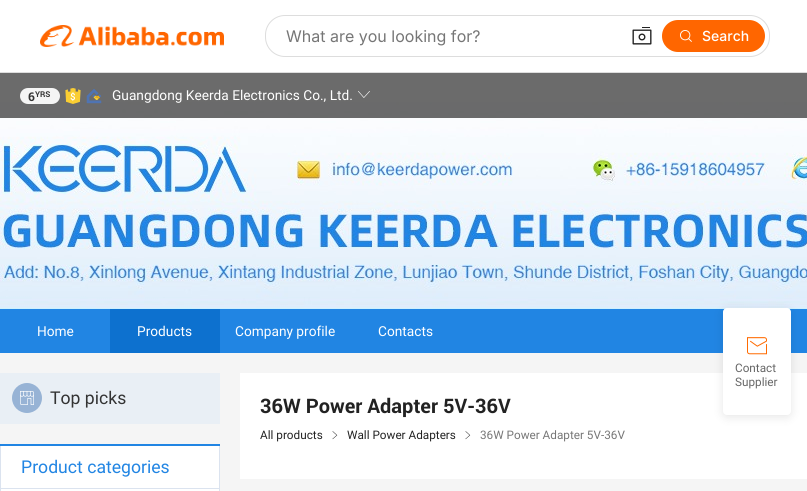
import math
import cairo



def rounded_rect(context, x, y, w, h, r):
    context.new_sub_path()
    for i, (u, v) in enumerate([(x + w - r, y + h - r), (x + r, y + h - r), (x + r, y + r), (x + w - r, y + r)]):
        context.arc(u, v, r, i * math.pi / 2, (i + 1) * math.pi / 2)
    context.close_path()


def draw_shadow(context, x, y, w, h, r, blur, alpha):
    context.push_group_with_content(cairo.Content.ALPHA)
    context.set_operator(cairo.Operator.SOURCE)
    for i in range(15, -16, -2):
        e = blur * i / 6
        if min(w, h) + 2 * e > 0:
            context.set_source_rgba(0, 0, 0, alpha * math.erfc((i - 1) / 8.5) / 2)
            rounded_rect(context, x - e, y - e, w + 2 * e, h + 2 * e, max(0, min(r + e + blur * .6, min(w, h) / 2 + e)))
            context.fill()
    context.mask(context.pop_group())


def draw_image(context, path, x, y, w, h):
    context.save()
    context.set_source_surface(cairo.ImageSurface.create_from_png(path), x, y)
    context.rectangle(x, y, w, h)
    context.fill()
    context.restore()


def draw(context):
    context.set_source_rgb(1, 1, 1)
    context.paint()
    context.set_source_rgb(221 / 255, 221 / 255, 221 / 255)
    context.rectangle(0, 72, 807, 1)
    context.fill()
    draw_image(context, "images/1.png", 40, 25, 184, 22)
    rounded_rect(context, 265, 15, 505, 42, 20)
    context.fill()
    context.set_source_rgb(1, 1, 1)
    rounded_rect(context, 266, 16, 503, 40, 19)
    context.fill()
    draw_image(context, "images/2.png", 632, 27, 20, 18)
    context.set_source_rgb(1, 102 / 255, 0)
    rounded_rect(context, 662, 20, 103, 32, 16)
    context.fill()
    draw_image(context, "images/3.png", 680, 30, 12, 12)
    draw_image(context, "images/7.png", 0, 102, 807, 207)
    context.set_source_rgba(51 / 255, 51 / 255, 51 / 255, 0.2)
    context.rectangle(0, 73, 807, 45)
    context.fill()
    context.set_source_rgba(0, 0, 0, 0.5)
    context.rectangle(0, 73, 807, 45)
    context.fill()
    context.set_source_rgb(245 / 255, 245 / 255, 245 / 255)
    rounded_rect(context, 20, 88, 40, 16, 8)
    context.fill()
    draw_image(context, "images/4.png", 65, 88, 16, 16)
    draw_image(context, "images/5.png", 86, 89, 16, 15)
    draw_image(context, "images/6.png", 358, 91, 12, 7)
    context.set_source_rgb(33 / 255, 133 / 255, 227 / 255)
    context.rectangle(0, 309, 807, 44)
    context.fill()
    context.set_source_rgb(13 / 255, 113 / 255, 207 / 255)
    context.rectangle(110, 309, 110, 44)
    context.fill()
    context.set_source_rgb(245 / 255, 245 / 255, 245 / 255)
    context.rectangle(0, 353, 807, 138)
    context.fill()
    context.set_source_rgb(233 / 255, 239 / 255, 245 / 255)
    context.rectangle(0, 373, 220, 51)
    context.fill()
    context.set_source_rgb(151 / 255, 179 / 255, 213 / 255)
    context.arc(27, 398, 15, 0, 2 * math.pi)
    context.fill()
    draw_image(context, "images/8.png", 20, 391, 14, 14)
    context.set_source_rgb(1, 1, 1)
    context.rectangle(1, 446, 218, 45)
    context.fill()
    context.set_source_rgb(33 / 255, 133 / 255, 227 / 255)
    context.rectangle(0, 444, 220, 2)
    context.fill()
    context.set_source_rgb(219 / 255, 227 / 255, 239 / 255)
    context.rectangle(219, 446, 1, 45)
    context.fill()
    context.rectangle(0, 446, 1, 45)
    context.fill()
    context.rectangle(1, 488, 218, 1)
    context.fill()
    context.set_source_rgb(1, 1, 1)
    context.rectangle(240, 373, 567, 106)
    context.fill()
    draw_image(context, "images/9.png", 332, 431, 6, 9)
    draw_image(context, "images/10.png", 465, 431, 6, 9)
    context.set_source_rgb(0, 0, 0)
    draw_shadow(context, 723, 310, 68, 107, 4, 5, 0.1)
    context.set_source_rgb(1, 1, 1)
    rounded_rect(context, 723, 308, 68, 107, 4)
    context.fill()
    draw_image(context, "images/11.png", 747, 337, 20, 18)
    context.select_font_face("Inter")
    context.set_font_size(16)
    context.set_source_rgb(118 / 255, 118 / 255, 118 / 255)
    context.move_to(286, 42)
    context.show_text("What are you looking for?")
    context.select_font_face("Inter Medium")
    context.set_font_size(14)
    context.set_source_rgb(1, 1, 1)
    context.move_to(702, 41)
    context.show_text("Search")
    context.select_font_face("Roboto", cairo.FontSlant.NORMAL, cairo.FontWeight.BOLD)
    context.set_font_size(12)
    context.set_source_rgb(51 / 255, 51 / 255, 51 / 255)
    context.move_to(28, 101)
    context.show_text("6")
    context.set_font_size(8)
    context.move_to(35, 97)
    context.show_text("YRS")
    context.select_font_face("Roboto")
    context.set_font_size(14)
    context.set_source_rgb(1, 1, 1)
    context.move_to(112, 100)
    context.show_text("Guangdong Keerda Electronics Co., Ltd.")
    context.move_to(37, 336)
    context.show_text("Home")
    context.move_to(137, 336)
    context.show_text("Products")
    context.move_to(235, 336)
    context.show_text("Company profile")
    context.move_to(378, 336)
    context.show_text("Contacts")
    context.set_font_size(18)
    context.set_source_rgb(51 / 255, 51 / 255, 51 / 255)
    context.move_to(50, 404)
    context.show_text("Top picks")
    context.set_source_rgb(33 / 255, 133 / 255, 227 / 255)
    context.move_to(21, 473)
    context.show_text("Product categories")
    context.select_font_face("Roboto", cairo.FontSlant.NORMAL, cairo.FontWeight.BOLD)
    context.set_font_size(20)
    context.set_source_rgb(34 / 255, 34 / 255, 34 / 255)
    context.move_to(260, 413)
    context.show_text("36W Power Adapter 5V-36V")
    context.select_font_face("Roboto")
    context.set_font_size(12)
    context.move_to(260, 439)
    context.show_text("All products")
    context.move_to(347, 439)
    context.show_text("Wall Power Adapters")
    context.set_source_rgb(118 / 255, 118 / 255, 118 / 255)
    context.move_to(480, 439)
    context.show_text("36W Power Adapter 5V-36V")
    context.set_source_rgb(102 / 255, 102 / 255, 102 / 255)
    context.move_to(735, 372)
    context.show_text("Contact")
    context.move_to(735, 386)
    context.show_text("Supplier")


surface = cairo.ImageSurface(cairo.Format.RGB24, 807, 491)
context = cairo.Context(surface)
options = cairo.FontOptions()
options.set_hint_metrics(cairo.HintMetrics.OFF)
options.set_hint_style(cairo.HintStyle.NONE)
context.set_font_options(options)
context.set_miter_limit(4)
draw(context)
surface.write_to_png("out.png")
